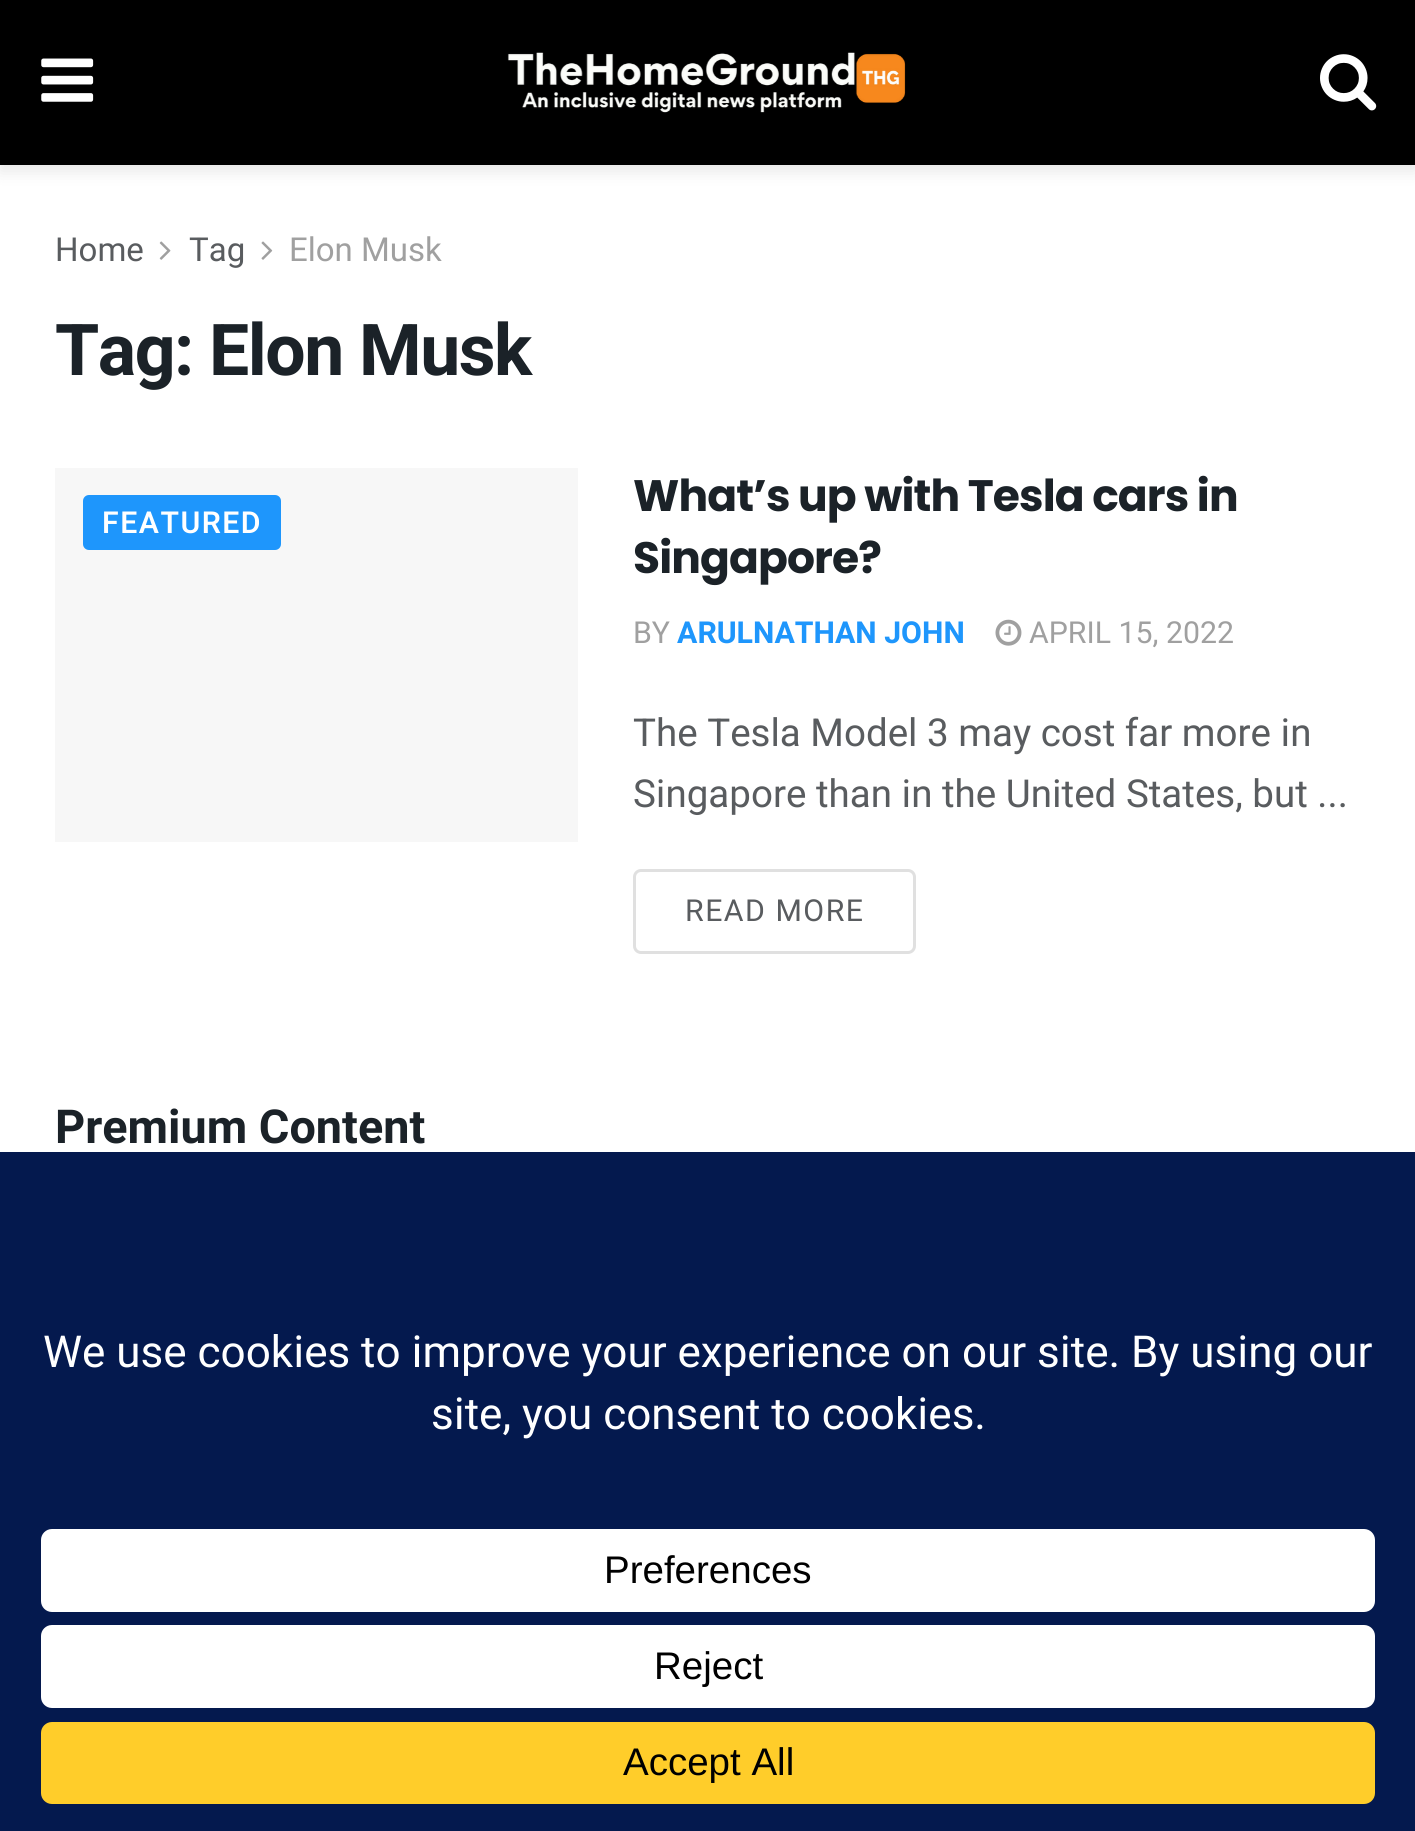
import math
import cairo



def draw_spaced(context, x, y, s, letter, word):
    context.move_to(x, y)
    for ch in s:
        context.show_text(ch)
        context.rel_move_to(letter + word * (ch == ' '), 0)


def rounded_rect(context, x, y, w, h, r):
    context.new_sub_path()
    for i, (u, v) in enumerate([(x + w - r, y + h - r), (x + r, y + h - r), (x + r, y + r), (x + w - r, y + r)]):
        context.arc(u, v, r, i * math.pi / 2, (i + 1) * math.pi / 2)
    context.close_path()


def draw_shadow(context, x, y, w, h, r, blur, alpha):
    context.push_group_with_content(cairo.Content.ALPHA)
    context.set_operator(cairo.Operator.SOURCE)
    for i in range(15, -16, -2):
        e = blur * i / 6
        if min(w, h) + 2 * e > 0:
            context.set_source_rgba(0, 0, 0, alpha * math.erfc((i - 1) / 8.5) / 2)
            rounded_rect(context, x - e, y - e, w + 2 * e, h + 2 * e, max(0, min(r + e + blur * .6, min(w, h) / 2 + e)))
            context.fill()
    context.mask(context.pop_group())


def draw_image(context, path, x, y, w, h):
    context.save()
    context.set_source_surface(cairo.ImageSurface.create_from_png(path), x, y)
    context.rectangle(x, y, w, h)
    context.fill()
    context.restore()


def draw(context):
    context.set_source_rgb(1, 1, 1)
    context.paint()
    context.set_source_rgb(0, 0, 0)
    draw_shadow(context, 0, 6, 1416, 165, 0, 8, 0.1)
    context.set_source_rgb(0, 0, 0)
    context.rectangle(0, 0, 1415, 165)
    context.fill()
    draw_image(context, "images/1.png", 41, 58, 53, 44)
    draw_image(context, "images/2.png", 507, 52, 399, 61)
    draw_image(context, "images/3.png", 1320, 54, 57, 57)
    draw_image(context, "images/4.png", 159, 241, 12, 19)
    draw_image(context, "images/5.png", 261, 241, 12, 19)
    context.set_source_rgb(247 / 255, 247 / 255, 247 / 255)
    context.rectangle(55, 468, 523, 374)
    context.fill()
    context.set_source_rgb(30 / 255, 150 / 255, 252 / 255)
    rounded_rect(context, 83, 495, 198, 55, 6)
    context.fill()
    draw_image(context, "images/6.png", 995, 619, 27, 27)
    rounded_rect(context, 634.5, 870.5, 280, 82, 6.5)
    context.set_source_rgb(224 / 255, 224 / 255, 224 / 255)
    context.set_line_width(3)
    context.stroke()
    context.set_source_rgb(4 / 255, 25 / 255, 78 / 255)
    context.rectangle(0, 1152, 1415, 679)
    context.fill()
    context.set_source_rgb(1, 1, 1)
    rounded_rect(context, 41, 1529, 1334, 83, 11)
    context.fill()
    rounded_rect(context, 41, 1625, 1334, 83, 11)
    context.fill()
    context.set_source_rgb(1, 205 / 255, 42 / 255)
    rounded_rect(context, 41, 1722, 1334, 82, 11)
    context.fill()
    context.select_font_face("Heebo")
    context.set_font_size(33)
    context.set_source_rgb(89 / 255, 92 / 255, 95 / 255)
    context.move_to(55, 261)
    context.show_text("Home")
    context.move_to(189, 261)
    context.show_text("Tag")
    context.set_source_rgb(160 / 255, 160 / 255, 160 / 255)
    context.move_to(289, 261)
    context.show_text("Elon Musk")
    context.select_font_face("Heebo", cairo.FontSlant.NORMAL, cairo.FontWeight.BOLD)
    context.set_font_size(71.5)
    context.set_source_rgb(27 / 255, 34 / 255, 40 / 255)
    draw_spaced(context, 55, 375, "Tag: Elon Musk", -1.5, 0)
    context.select_font_face("Heebo SemiBold")
    context.set_font_size(30.25)
    context.set_source_rgb(1, 1, 1)
    draw_spaced(context, 102, 533, "FEATURED", 1.5, 0)
    context.select_font_face("Poppins", cairo.FontSlant.NORMAL, cairo.FontWeight.BOLD)
    context.set_font_size(44)
    context.set_source_rgb(27 / 255, 34 / 255, 40 / 255)
    draw_spaced(context, 633, 511, "What’s up with Tesla cars in", -0.9, 0)
    draw_spaced(context, 633, 573, "Singapore?", -0.9, 0)
    context.select_font_face("Heebo")
    context.set_font_size(30.25)
    context.set_source_rgb(160 / 255, 160 / 255, 160 / 255)
    context.move_to(633, 643)
    context.show_text("BY")
    context.select_font_face("Heebo", cairo.FontSlant.NORMAL, cairo.FontWeight.BOLD)
    context.set_source_rgb(30 / 255, 150 / 255, 252 / 255)
    context.move_to(677, 643)
    context.show_text("ARULNATHAN JOHN")
    context.select_font_face("Heebo")
    context.set_source_rgb(160 / 255, 160 / 255, 160 / 255)
    context.move_to(1029, 643)
    context.show_text("APRIL 15, 2022")
    context.set_font_size(38.5)
    context.set_source_rgb(89 / 255, 92 / 255, 95 / 255)
    context.move_to(633, 746)
    context.show_text("The Tesla Model 3 may cost far more in")
    context.move_to(633, 807)
    context.show_text("Singapore than in the United States, but ...")
    context.set_font_size(30.25)
    draw_spaced(context, 685, 921, "READ MORE", 1.5, 0)
    context.select_font_face("Heebo", cairo.FontSlant.NORMAL, cairo.FontWeight.BOLD)
    context.set_font_size(46.75)
    context.set_source_rgb(27 / 255, 34 / 255, 40 / 255)
    context.move_to(55, 1143)
    context.show_text("Premium Content")
    context.select_font_face("Heebo")
    context.set_font_size(44)
    context.set_source_rgb(1, 1, 1)
    context.move_to(43, 1367)
    context.show_text("We use cookies to improve your experience on our site. By using our")
    context.move_to(431, 1429)
    context.show_text("site, you consent to cookies.")
    context.select_font_face("Liberation Sans")
    context.set_font_size(38.5)
    context.set_source_rgb(0, 0, 0)
    context.move_to(604, 1583)
    context.show_text("Preferences")
    context.move_to(654, 1679)
    context.show_text("Reject")
    context.move_to(623, 1775)
    context.show_text("Accept All")


surface = cairo.ImageSurface(cairo.Format.RGB24, 1415, 1831)
context = cairo.Context(surface)
options = cairo.FontOptions()
options.set_hint_metrics(cairo.HintMetrics.OFF)
options.set_hint_style(cairo.HintStyle.NONE)
context.set_font_options(options)
context.set_miter_limit(4)
draw(context)
surface.write_to_png("out.png")
